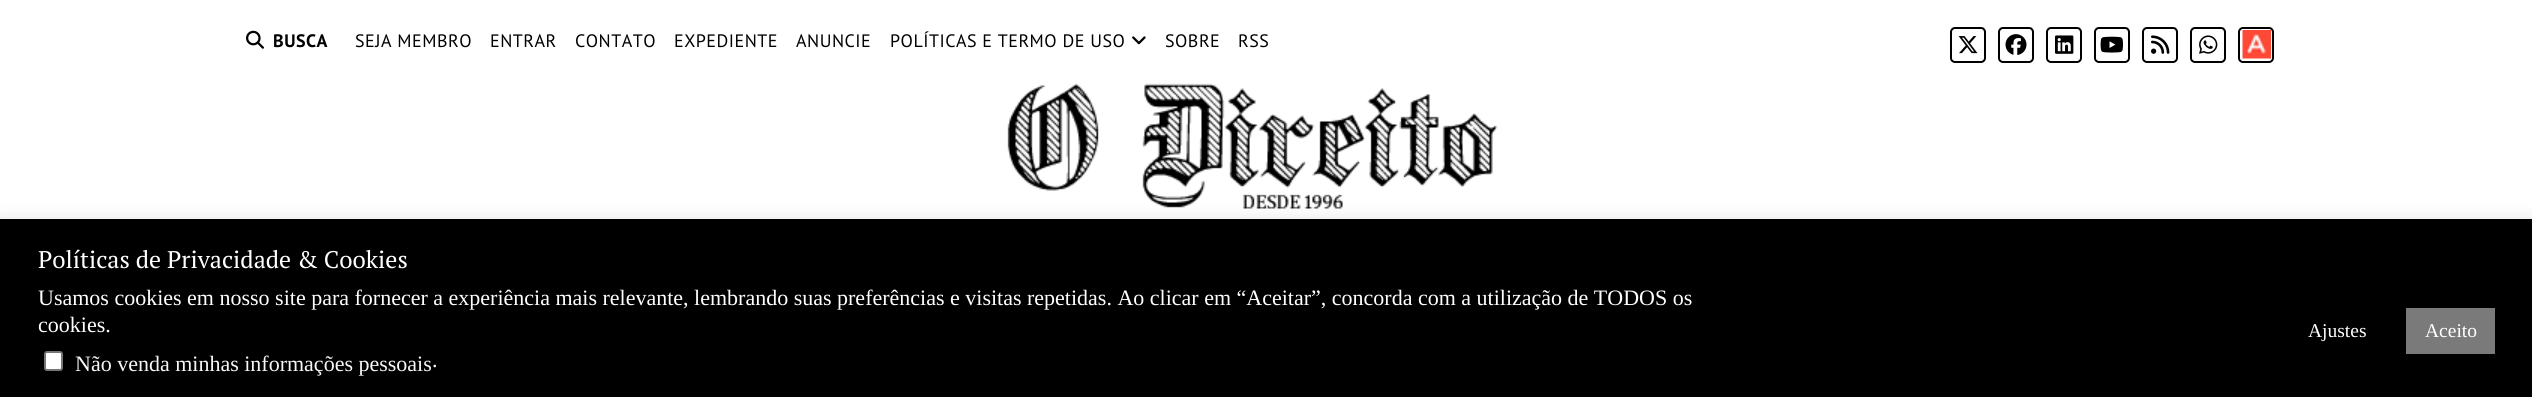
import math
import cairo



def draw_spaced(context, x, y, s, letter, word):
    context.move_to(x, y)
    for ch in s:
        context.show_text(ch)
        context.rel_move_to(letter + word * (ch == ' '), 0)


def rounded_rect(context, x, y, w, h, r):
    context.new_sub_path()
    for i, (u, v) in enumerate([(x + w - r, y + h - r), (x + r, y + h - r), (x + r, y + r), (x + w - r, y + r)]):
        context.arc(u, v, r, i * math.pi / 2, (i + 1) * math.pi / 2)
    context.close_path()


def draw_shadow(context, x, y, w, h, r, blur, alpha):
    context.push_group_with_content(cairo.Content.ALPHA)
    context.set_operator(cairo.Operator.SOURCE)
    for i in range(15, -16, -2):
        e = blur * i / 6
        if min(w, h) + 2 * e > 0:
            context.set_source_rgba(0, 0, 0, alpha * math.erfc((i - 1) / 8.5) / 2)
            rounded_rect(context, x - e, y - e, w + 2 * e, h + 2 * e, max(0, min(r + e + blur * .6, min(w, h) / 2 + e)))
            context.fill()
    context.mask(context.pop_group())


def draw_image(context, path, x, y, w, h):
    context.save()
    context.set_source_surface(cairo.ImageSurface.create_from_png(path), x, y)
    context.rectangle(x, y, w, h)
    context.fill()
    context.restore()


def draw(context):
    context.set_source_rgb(1, 1, 1)
    context.paint()
    draw_image(context, "images/1.png", 246, 30, 18, 19)
    draw_image(context, "images/2.png", 1132, 36, 14, 9)
    rounded_rect(context, 1951, 28, 34, 34, 4)
    context.set_source_rgb(0, 0, 0)
    context.stroke()
    draw_image(context, "images/3.png", 1958, 36, 20, 18)
    rounded_rect(context, 1999, 28, 34, 34, 4)
    context.stroke()
    draw_image(context, "images/4.png", 2005, 34, 22, 21)
    rounded_rect(context, 2047, 28, 34, 34, 4)
    context.stroke()
    draw_image(context, "images/5.png", 2055, 35, 19, 19)
    rounded_rect(context, 2095, 28, 34, 34, 4)
    context.stroke()
    draw_image(context, "images/6.png", 2100, 36, 23, 17)
    rounded_rect(context, 2143, 28, 34, 34, 4)
    context.stroke()
    draw_image(context, "images/7.png", 2151, 35, 19, 19)
    rounded_rect(context, 2191, 28, 34, 34, 4)
    context.stroke()
    draw_image(context, "images/8.png", 2199, 35, 19, 19)
    rounded_rect(context, 2239, 28, 34, 34, 4)
    context.stroke()
    draw_image(context, "images/9.png", 2242, 30, 29, 29)
    draw_image(context, "images/10.png", 1007, 83, 491, 126)
    context.set_source_rgb(172 / 255, 171 / 255, 171 / 255)
    draw_shadow(context, 0, 218, 2532, 178, 0, 7.5, 0.3)
    context.set_source_rgb(0, 0, 0)
    context.rectangle(0, 219, 2532, 178)
    context.fill()
    context.set_source_rgb(1, 1, 1)
    rounded_rect(context, 45, 352, 17, 18, 2)
    context.fill_preserve()
    context.set_source_rgb(118 / 255, 118 / 255, 118 / 255)
    context.stroke()
    context.set_source_rgb(122 / 255, 122 / 255, 122 / 255)
    context.rectangle(2406, 308, 89, 46)
    context.fill()
    context.select_font_face("PT Sans", cairo.FontSlant.NORMAL, cairo.FontWeight.BOLD)
    context.set_font_size(18)
    context.set_source_rgb(0, 0, 0)
    draw_spaced(context, 273, 47, "BUSCA", 0.5, 0)
    context.select_font_face("PT Sans")
    draw_spaced(context, 355, 47, "SEJA MEMBRO", 0.5, 0)
    draw_spaced(context, 490, 47, "ENTRAR", 0.5, 0)
    draw_spaced(context, 575, 47, "CONTATO", 0.5, 0)
    draw_spaced(context, 674, 47, "EXPEDIENTE", 0.5, 0)
    draw_spaced(context, 796, 47, "ANUNCIE", 0.5, 0)
    draw_spaced(context, 890, 47, "POLÍTICAS E TERMO DE USO", 0.5, 0)
    draw_spaced(context, 1165, 47, "SOBRE", 0.5, 0)
    draw_spaced(context, 1238, 47, "RSS", 0.5, 0)
    context.select_font_face("PT Serif")
    context.set_font_size(24)
    context.set_source_rgb(1, 1, 1)
    context.move_to(38, 268)
    context.show_text("Políticas de Privacidade & Cookies")
    context.select_font_face("Liberation Serif")
    context.set_font_size(22)
    context.move_to(38, 305)
    context.show_text("Usamos cookies em nosso site para fornecer a experiência mais relevante, lembrando suas preferências e visitas repetidas. Ao clicar em “Aceitar”, concorda com a utilização de TODOS os")
    context.move_to(38, 332)
    context.show_text("cookies.")
    context.set_source_rgb(247 / 255, 247 / 255, 247 / 255)
    context.move_to(75, 371)
    context.show_text("Não venda minhas informações pessoais")
    context.set_source_rgb(1, 1, 1)
    context.move_to(432, 367)
    context.show_text(".")
    context.set_font_size(19.5)
    context.move_to(2308, 337)
    context.show_text("Ajustes")
    context.move_to(2425, 337)
    context.show_text("Aceito")


surface = cairo.ImageSurface(cairo.Format.RGB24, 2532, 397)
context = cairo.Context(surface)
options = cairo.FontOptions()
options.set_hint_metrics(cairo.HintMetrics.OFF)
options.set_hint_style(cairo.HintStyle.NONE)
context.set_font_options(options)
context.set_miter_limit(4)
draw(context)
surface.write_to_png("out.png")
